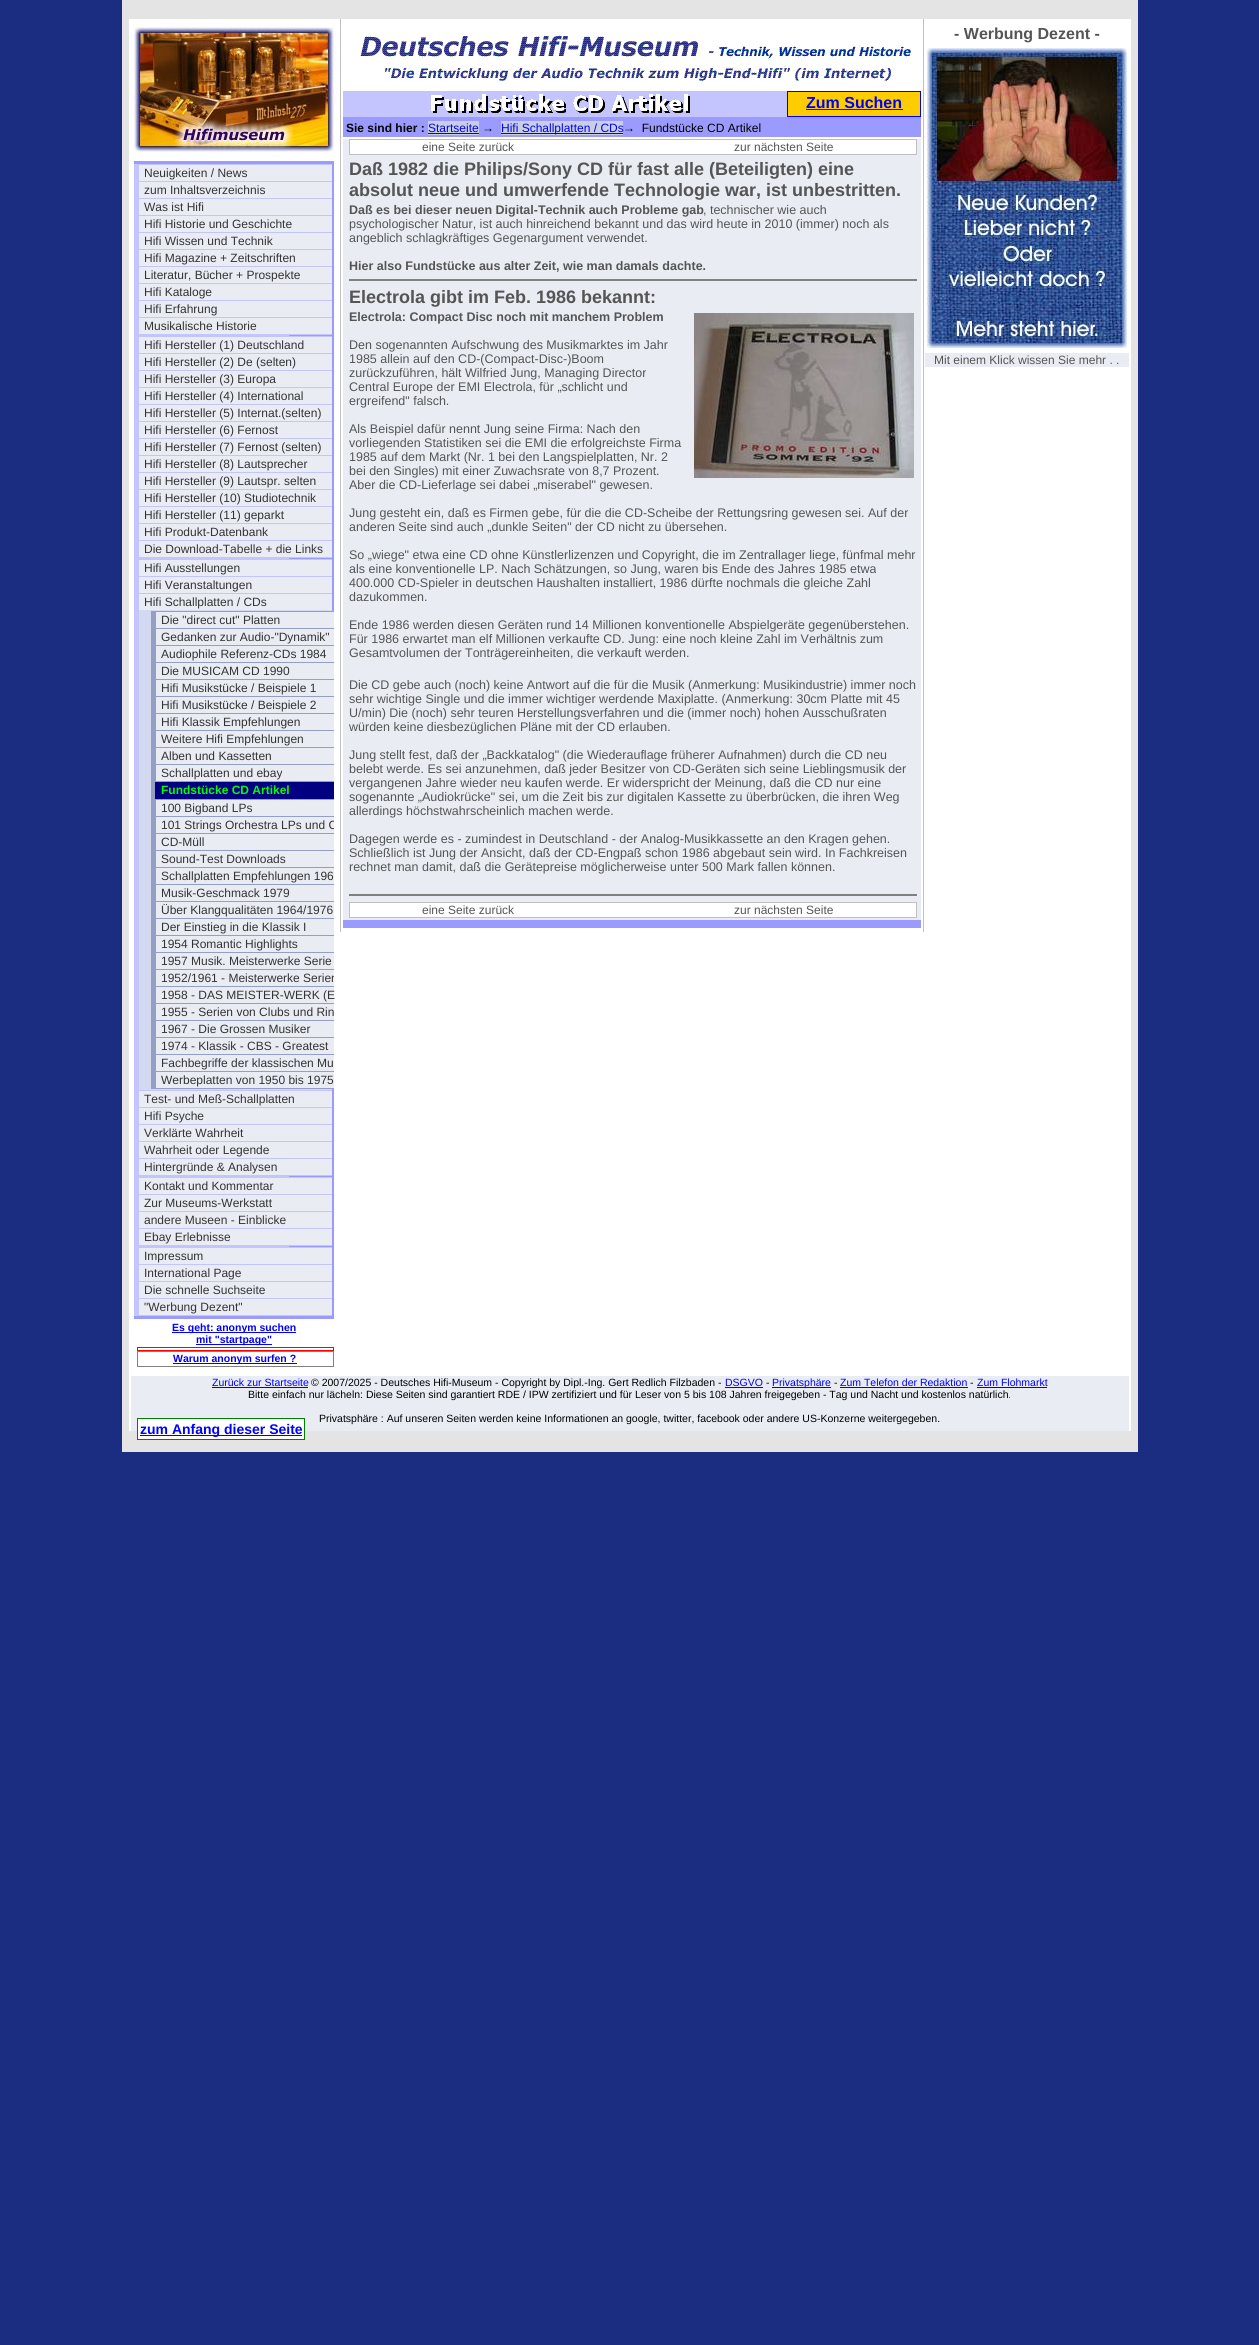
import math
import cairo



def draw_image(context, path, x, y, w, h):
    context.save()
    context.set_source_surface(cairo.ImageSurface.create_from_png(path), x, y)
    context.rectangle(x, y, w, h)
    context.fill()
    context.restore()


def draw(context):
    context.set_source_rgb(26 / 255, 45 / 255, 128 / 255)
    context.paint()
    context.set_source_rgb(228 / 255, 228 / 255, 228 / 255)
    context.rectangle(122, 0, 1016, 1452)
    context.fill()
    context.set_source_rgb(1, 1, 1)
    context.rectangle(129, 19, 1002, 1412)
    context.fill()
    draw_image(context, "images/1.png", 134, 27, 200, 125)
    context.set_source_rgb(155 / 255, 155 / 255, 1)
    context.rectangle(134, 161, 200, 1158)
    context.fill()
    context.set_source_rgb(234 / 255, 236 / 255, 244 / 255)
    context.rectangle(139, 165, 193, 16)
    context.fill()
    context.set_source_rgb(196 / 255, 196 / 255, 1)
    context.rectangle(134, 164, 198, 1)
    context.fill()
    context.rectangle(134, 181, 198, 1)
    context.fill()
    context.rectangle(134, 164, 5, 18)
    context.fill()
    context.set_source_rgb(234 / 255, 236 / 255, 244 / 255)
    context.rectangle(139, 182, 193, 16)
    context.fill()
    context.set_source_rgb(196 / 255, 196 / 255, 1)
    context.rectangle(134, 198, 198, 1)
    context.fill()
    context.rectangle(134, 181, 5, 18)
    context.fill()
    context.set_source_rgb(234 / 255, 236 / 255, 244 / 255)
    context.rectangle(139, 199, 193, 16)
    context.fill()
    context.set_source_rgb(196 / 255, 196 / 255, 1)
    context.rectangle(134, 215, 198, 1)
    context.fill()
    context.rectangle(134, 198, 5, 18)
    context.fill()
    context.set_source_rgb(234 / 255, 236 / 255, 244 / 255)
    context.rectangle(139, 216, 193, 16)
    context.fill()
    context.set_source_rgb(196 / 255, 196 / 255, 1)
    context.rectangle(134, 232, 198, 1)
    context.fill()
    context.rectangle(134, 215, 5, 18)
    context.fill()
    context.set_source_rgb(234 / 255, 236 / 255, 244 / 255)
    context.rectangle(139, 233, 193, 16)
    context.fill()
    context.set_source_rgb(196 / 255, 196 / 255, 1)
    context.rectangle(134, 249, 198, 1)
    context.fill()
    context.rectangle(134, 232, 5, 18)
    context.fill()
    context.set_source_rgb(234 / 255, 236 / 255, 244 / 255)
    context.rectangle(139, 250, 193, 16)
    context.fill()
    context.set_source_rgb(196 / 255, 196 / 255, 1)
    context.rectangle(134, 266, 198, 1)
    context.fill()
    context.rectangle(134, 249, 5, 18)
    context.fill()
    context.set_source_rgb(234 / 255, 236 / 255, 244 / 255)
    context.rectangle(139, 267, 193, 16)
    context.fill()
    context.set_source_rgb(196 / 255, 196 / 255, 1)
    context.rectangle(134, 283, 198, 1)
    context.fill()
    context.rectangle(134, 266, 5, 18)
    context.fill()
    context.set_source_rgb(234 / 255, 236 / 255, 244 / 255)
    context.rectangle(139, 284, 193, 16)
    context.fill()
    context.set_source_rgb(196 / 255, 196 / 255, 1)
    context.rectangle(134, 300, 198, 1)
    context.fill()
    context.rectangle(134, 283, 5, 18)
    context.fill()
    context.set_source_rgb(234 / 255, 236 / 255, 244 / 255)
    context.rectangle(139, 301, 193, 16)
    context.fill()
    context.set_source_rgb(196 / 255, 196 / 255, 1)
    context.rectangle(134, 317, 198, 1)
    context.fill()
    context.rectangle(134, 300, 5, 18)
    context.fill()
    context.set_source_rgb(234 / 255, 236 / 255, 244 / 255)
    context.rectangle(139, 318, 193, 16)
    context.fill()
    context.set_source_rgb(196 / 255, 196 / 255, 1)
    context.rectangle(134, 334, 198, 1)
    context.fill()
    context.rectangle(134, 317, 5, 18)
    context.fill()
    context.rectangle(134, 335, 155, 1)
    context.fill()
    context.set_source_rgb(234 / 255, 236 / 255, 244 / 255)
    context.rectangle(139, 337, 193, 16)
    context.fill()
    context.set_source_rgb(196 / 255, 196 / 255, 1)
    context.rectangle(134, 336, 198, 1)
    context.fill()
    context.rectangle(134, 353, 198, 1)
    context.fill()
    context.rectangle(134, 336, 5, 18)
    context.fill()
    context.set_source_rgb(234 / 255, 236 / 255, 244 / 255)
    context.rectangle(139, 354, 193, 16)
    context.fill()
    context.set_source_rgb(196 / 255, 196 / 255, 1)
    context.rectangle(134, 370, 198, 1)
    context.fill()
    context.rectangle(134, 353, 5, 18)
    context.fill()
    context.set_source_rgb(234 / 255, 236 / 255, 244 / 255)
    context.rectangle(139, 371, 193, 16)
    context.fill()
    context.set_source_rgb(196 / 255, 196 / 255, 1)
    context.rectangle(134, 387, 198, 1)
    context.fill()
    context.rectangle(134, 370, 5, 18)
    context.fill()
    context.set_source_rgb(234 / 255, 236 / 255, 244 / 255)
    context.rectangle(139, 388, 193, 16)
    context.fill()
    context.set_source_rgb(196 / 255, 196 / 255, 1)
    context.rectangle(134, 404, 198, 1)
    context.fill()
    context.rectangle(134, 387, 5, 18)
    context.fill()
    context.set_source_rgb(234 / 255, 236 / 255, 244 / 255)
    context.rectangle(139, 405, 193, 16)
    context.fill()
    context.set_source_rgb(196 / 255, 196 / 255, 1)
    context.rectangle(134, 421, 198, 1)
    context.fill()
    context.rectangle(134, 404, 5, 18)
    context.fill()
    context.set_source_rgb(234 / 255, 236 / 255, 244 / 255)
    context.rectangle(139, 422, 193, 16)
    context.fill()
    context.set_source_rgb(196 / 255, 196 / 255, 1)
    context.rectangle(134, 438, 198, 1)
    context.fill()
    context.rectangle(134, 421, 5, 18)
    context.fill()
    context.set_source_rgb(234 / 255, 236 / 255, 244 / 255)
    context.rectangle(139, 439, 193, 16)
    context.fill()
    context.set_source_rgb(196 / 255, 196 / 255, 1)
    context.rectangle(134, 455, 198, 1)
    context.fill()
    context.rectangle(134, 438, 5, 18)
    context.fill()
    context.set_source_rgb(234 / 255, 236 / 255, 244 / 255)
    context.rectangle(139, 456, 193, 16)
    context.fill()
    context.set_source_rgb(196 / 255, 196 / 255, 1)
    context.rectangle(134, 472, 198, 1)
    context.fill()
    context.rectangle(134, 455, 5, 18)
    context.fill()
    context.set_source_rgb(234 / 255, 236 / 255, 244 / 255)
    context.rectangle(139, 473, 193, 16)
    context.fill()
    context.set_source_rgb(196 / 255, 196 / 255, 1)
    context.rectangle(134, 489, 198, 1)
    context.fill()
    context.rectangle(134, 472, 5, 18)
    context.fill()
    context.set_source_rgb(234 / 255, 236 / 255, 244 / 255)
    context.rectangle(139, 490, 193, 16)
    context.fill()
    context.set_source_rgb(196 / 255, 196 / 255, 1)
    context.rectangle(134, 506, 198, 1)
    context.fill()
    context.rectangle(134, 489, 5, 18)
    context.fill()
    context.set_source_rgb(234 / 255, 236 / 255, 244 / 255)
    context.rectangle(139, 507, 193, 16)
    context.fill()
    context.set_source_rgb(196 / 255, 196 / 255, 1)
    context.rectangle(134, 523, 198, 1)
    context.fill()
    context.rectangle(134, 506, 5, 18)
    context.fill()
    context.set_source_rgb(234 / 255, 236 / 255, 244 / 255)
    context.rectangle(139, 524, 193, 16)
    context.fill()
    context.set_source_rgb(196 / 255, 196 / 255, 1)
    context.rectangle(134, 540, 198, 1)
    context.fill()
    context.rectangle(134, 523, 5, 18)
    context.fill()
    context.set_source_rgb(234 / 255, 236 / 255, 244 / 255)
    context.rectangle(139, 541, 193, 16)
    context.fill()
    context.set_source_rgb(196 / 255, 196 / 255, 1)
    context.rectangle(134, 557, 198, 1)
    context.fill()
    context.rectangle(134, 540, 5, 18)
    context.fill()
    context.rectangle(134, 558, 155, 1)
    context.fill()
    context.set_source_rgb(234 / 255, 236 / 255, 244 / 255)
    context.rectangle(139, 560, 193, 16)
    context.fill()
    context.set_source_rgb(196 / 255, 196 / 255, 1)
    context.rectangle(134, 559, 198, 1)
    context.fill()
    context.rectangle(134, 576, 198, 1)
    context.fill()
    context.rectangle(134, 559, 5, 18)
    context.fill()
    context.set_source_rgb(234 / 255, 236 / 255, 244 / 255)
    context.rectangle(139, 577, 193, 16)
    context.fill()
    context.set_source_rgb(196 / 255, 196 / 255, 1)
    context.rectangle(134, 593, 198, 1)
    context.fill()
    context.rectangle(134, 576, 5, 18)
    context.fill()
    context.set_source_rgb(234 / 255, 236 / 255, 244 / 255)
    context.rectangle(139, 594, 193, 16)
    context.fill()
    context.set_source_rgb(196 / 255, 196 / 255, 1)
    context.rectangle(134, 1090, 198, 1)
    context.fill()
    context.rectangle(134, 593, 5, 498)
    context.fill()
    context.set_source_rgb(211 / 255, 217 / 255, 240 / 255)
    context.rectangle(139, 610, 193, 480)
    context.fill()
    context.set_source_rgb(234 / 255, 236 / 255, 244 / 255)
    context.rectangle(156, 612, 178, 16)
    context.fill()
    context.set_source_rgb(149 / 255, 159 / 255, 198 / 255)
    context.rectangle(151, 611, 183, 1)
    context.fill()
    context.rectangle(151, 628, 183, 1)
    context.fill()
    context.rectangle(151, 611, 5, 18)
    context.fill()
    context.set_source_rgb(234 / 255, 236 / 255, 244 / 255)
    context.rectangle(156, 629, 178, 16)
    context.fill()
    context.set_source_rgb(149 / 255, 159 / 255, 198 / 255)
    context.rectangle(151, 645, 183, 1)
    context.fill()
    context.rectangle(151, 628, 5, 18)
    context.fill()
    context.set_source_rgb(234 / 255, 236 / 255, 244 / 255)
    context.rectangle(156, 646, 178, 16)
    context.fill()
    context.set_source_rgb(149 / 255, 159 / 255, 198 / 255)
    context.rectangle(151, 662, 183, 1)
    context.fill()
    context.rectangle(151, 645, 5, 18)
    context.fill()
    context.set_source_rgb(234 / 255, 236 / 255, 244 / 255)
    context.rectangle(156, 663, 178, 16)
    context.fill()
    context.set_source_rgb(149 / 255, 159 / 255, 198 / 255)
    context.rectangle(151, 679, 183, 1)
    context.fill()
    context.rectangle(151, 662, 5, 18)
    context.fill()
    context.set_source_rgb(234 / 255, 236 / 255, 244 / 255)
    context.rectangle(156, 680, 178, 16)
    context.fill()
    context.set_source_rgb(149 / 255, 159 / 255, 198 / 255)
    context.rectangle(151, 696, 183, 1)
    context.fill()
    context.rectangle(151, 679, 5, 18)
    context.fill()
    context.set_source_rgb(234 / 255, 236 / 255, 244 / 255)
    context.rectangle(156, 697, 178, 16)
    context.fill()
    context.set_source_rgb(149 / 255, 159 / 255, 198 / 255)
    context.rectangle(151, 713, 183, 1)
    context.fill()
    context.rectangle(151, 696, 5, 18)
    context.fill()
    context.set_source_rgb(234 / 255, 236 / 255, 244 / 255)
    context.rectangle(156, 714, 178, 16)
    context.fill()
    context.set_source_rgb(149 / 255, 159 / 255, 198 / 255)
    context.rectangle(151, 730, 183, 1)
    context.fill()
    context.rectangle(151, 713, 5, 18)
    context.fill()
    context.set_source_rgb(234 / 255, 236 / 255, 244 / 255)
    context.rectangle(156, 731, 178, 16)
    context.fill()
    context.set_source_rgb(149 / 255, 159 / 255, 198 / 255)
    context.rectangle(151, 747, 183, 1)
    context.fill()
    context.rectangle(151, 730, 5, 18)
    context.fill()
    context.set_source_rgb(234 / 255, 236 / 255, 244 / 255)
    context.rectangle(156, 748, 178, 16)
    context.fill()
    context.set_source_rgb(149 / 255, 159 / 255, 198 / 255)
    context.rectangle(151, 764, 183, 1)
    context.fill()
    context.rectangle(151, 747, 5, 18)
    context.fill()
    context.set_source_rgb(234 / 255, 236 / 255, 244 / 255)
    context.rectangle(156, 765, 178, 16)
    context.fill()
    context.set_source_rgb(149 / 255, 159 / 255, 198 / 255)
    context.rectangle(151, 781, 183, 1)
    context.fill()
    context.rectangle(151, 764, 5, 18)
    context.fill()
    context.rectangle(151, 799, 183, 1)
    context.fill()
    context.rectangle(151, 781, 5, 19)
    context.fill()
    context.set_source_rgb(0, 0, 128 / 255)
    context.rectangle(155, 782, 179, 17)
    context.fill()
    context.set_source_rgb(234 / 255, 236 / 255, 244 / 255)
    context.rectangle(156, 800, 178, 16)
    context.fill()
    context.set_source_rgb(149 / 255, 159 / 255, 198 / 255)
    context.rectangle(151, 816, 183, 1)
    context.fill()
    context.rectangle(151, 799, 5, 18)
    context.fill()
    context.set_source_rgb(234 / 255, 236 / 255, 244 / 255)
    context.rectangle(156, 817, 178, 16)
    context.fill()
    context.set_source_rgb(149 / 255, 159 / 255, 198 / 255)
    context.rectangle(151, 833, 183, 1)
    context.fill()
    context.rectangle(151, 816, 5, 18)
    context.fill()
    context.set_source_rgb(234 / 255, 236 / 255, 244 / 255)
    context.rectangle(156, 834, 178, 16)
    context.fill()
    context.set_source_rgb(149 / 255, 159 / 255, 198 / 255)
    context.rectangle(151, 850, 183, 1)
    context.fill()
    context.rectangle(151, 833, 5, 18)
    context.fill()
    context.set_source_rgb(234 / 255, 236 / 255, 244 / 255)
    context.rectangle(156, 851, 178, 16)
    context.fill()
    context.set_source_rgb(149 / 255, 159 / 255, 198 / 255)
    context.rectangle(151, 867, 183, 1)
    context.fill()
    context.rectangle(151, 850, 5, 18)
    context.fill()
    context.set_source_rgb(234 / 255, 236 / 255, 244 / 255)
    context.rectangle(156, 868, 178, 16)
    context.fill()
    context.set_source_rgb(149 / 255, 159 / 255, 198 / 255)
    context.rectangle(151, 884, 183, 1)
    context.fill()
    context.rectangle(151, 867, 5, 18)
    context.fill()
    context.set_source_rgb(234 / 255, 236 / 255, 244 / 255)
    context.rectangle(156, 885, 178, 16)
    context.fill()
    context.set_source_rgb(149 / 255, 159 / 255, 198 / 255)
    context.rectangle(151, 901, 183, 1)
    context.fill()
    context.rectangle(151, 884, 5, 18)
    context.fill()
    context.set_source_rgb(234 / 255, 236 / 255, 244 / 255)
    context.rectangle(156, 902, 178, 16)
    context.fill()
    context.set_source_rgb(149 / 255, 159 / 255, 198 / 255)
    context.rectangle(151, 918, 183, 1)
    context.fill()
    context.rectangle(151, 901, 5, 18)
    context.fill()
    context.set_source_rgb(234 / 255, 236 / 255, 244 / 255)
    context.rectangle(156, 919, 178, 16)
    context.fill()
    context.set_source_rgb(149 / 255, 159 / 255, 198 / 255)
    context.rectangle(151, 935, 183, 1)
    context.fill()
    context.rectangle(151, 918, 5, 18)
    context.fill()
    context.set_source_rgb(234 / 255, 236 / 255, 244 / 255)
    context.rectangle(156, 936, 178, 16)
    context.fill()
    context.set_source_rgb(149 / 255, 159 / 255, 198 / 255)
    context.rectangle(151, 952, 183, 1)
    context.fill()
    context.rectangle(151, 935, 5, 18)
    context.fill()
    context.set_source_rgb(234 / 255, 236 / 255, 244 / 255)
    context.rectangle(156, 953, 178, 16)
    context.fill()
    context.set_source_rgb(149 / 255, 159 / 255, 198 / 255)
    context.rectangle(151, 969, 183, 1)
    context.fill()
    context.rectangle(151, 952, 5, 18)
    context.fill()
    context.set_source_rgb(234 / 255, 236 / 255, 244 / 255)
    context.rectangle(156, 970, 178, 16)
    context.fill()
    context.set_source_rgb(149 / 255, 159 / 255, 198 / 255)
    context.rectangle(151, 986, 183, 1)
    context.fill()
    context.rectangle(151, 969, 5, 18)
    context.fill()
    context.set_source_rgb(234 / 255, 236 / 255, 244 / 255)
    context.rectangle(156, 987, 178, 16)
    context.fill()
    context.set_source_rgb(149 / 255, 159 / 255, 198 / 255)
    context.rectangle(151, 1003, 183, 1)
    context.fill()
    context.rectangle(151, 986, 5, 18)
    context.fill()
    context.set_source_rgb(234 / 255, 236 / 255, 244 / 255)
    context.rectangle(156, 1004, 178, 16)
    context.fill()
    context.set_source_rgb(149 / 255, 159 / 255, 198 / 255)
    context.rectangle(151, 1020, 183, 1)
    context.fill()
    context.rectangle(151, 1003, 5, 18)
    context.fill()
    context.set_source_rgb(234 / 255, 236 / 255, 244 / 255)
    context.rectangle(156, 1021, 178, 16)
    context.fill()
    context.set_source_rgb(149 / 255, 159 / 255, 198 / 255)
    context.rectangle(151, 1037, 183, 1)
    context.fill()
    context.rectangle(151, 1020, 5, 18)
    context.fill()
    context.set_source_rgb(234 / 255, 236 / 255, 244 / 255)
    context.rectangle(156, 1038, 178, 16)
    context.fill()
    context.set_source_rgb(149 / 255, 159 / 255, 198 / 255)
    context.rectangle(151, 1054, 183, 1)
    context.fill()
    context.rectangle(151, 1037, 5, 18)
    context.fill()
    context.set_source_rgb(234 / 255, 236 / 255, 244 / 255)
    context.rectangle(156, 1055, 178, 16)
    context.fill()
    context.set_source_rgb(149 / 255, 159 / 255, 198 / 255)
    context.rectangle(151, 1071, 183, 1)
    context.fill()
    context.rectangle(151, 1054, 5, 18)
    context.fill()
    context.set_source_rgb(234 / 255, 236 / 255, 244 / 255)
    context.rectangle(156, 1072, 178, 16)
    context.fill()
    context.set_source_rgb(149 / 255, 159 / 255, 198 / 255)
    context.rectangle(151, 1088, 183, 1)
    context.fill()
    context.rectangle(151, 1071, 5, 18)
    context.fill()
    context.set_source_rgb(234 / 255, 236 / 255, 244 / 255)
    context.rectangle(139, 1091, 193, 16)
    context.fill()
    context.set_source_rgb(196 / 255, 196 / 255, 1)
    context.rectangle(134, 1107, 198, 1)
    context.fill()
    context.rectangle(134, 1090, 5, 18)
    context.fill()
    context.set_source_rgb(234 / 255, 236 / 255, 244 / 255)
    context.rectangle(139, 1108, 193, 16)
    context.fill()
    context.set_source_rgb(196 / 255, 196 / 255, 1)
    context.rectangle(134, 1124, 198, 1)
    context.fill()
    context.rectangle(134, 1107, 5, 18)
    context.fill()
    context.set_source_rgb(234 / 255, 236 / 255, 244 / 255)
    context.rectangle(139, 1125, 193, 16)
    context.fill()
    context.set_source_rgb(196 / 255, 196 / 255, 1)
    context.rectangle(134, 1141, 198, 1)
    context.fill()
    context.rectangle(134, 1124, 5, 18)
    context.fill()
    context.set_source_rgb(234 / 255, 236 / 255, 244 / 255)
    context.rectangle(139, 1142, 193, 16)
    context.fill()
    context.set_source_rgb(196 / 255, 196 / 255, 1)
    context.rectangle(134, 1158, 198, 1)
    context.fill()
    context.rectangle(134, 1141, 5, 18)
    context.fill()
    context.set_source_rgb(234 / 255, 236 / 255, 244 / 255)
    context.rectangle(139, 1159, 193, 16)
    context.fill()
    context.set_source_rgb(196 / 255, 196 / 255, 1)
    context.rectangle(134, 1175, 198, 1)
    context.fill()
    context.rectangle(134, 1158, 5, 18)
    context.fill()
    context.rectangle(134, 1176, 155, 1)
    context.fill()
    context.set_source_rgb(234 / 255, 236 / 255, 244 / 255)
    context.rectangle(139, 1178, 193, 16)
    context.fill()
    context.set_source_rgb(196 / 255, 196 / 255, 1)
    context.rectangle(134, 1177, 198, 1)
    context.fill()
    context.rectangle(134, 1194, 198, 1)
    context.fill()
    context.rectangle(134, 1177, 5, 18)
    context.fill()
    context.set_source_rgb(234 / 255, 236 / 255, 244 / 255)
    context.rectangle(139, 1195, 193, 16)
    context.fill()
    context.set_source_rgb(196 / 255, 196 / 255, 1)
    context.rectangle(134, 1211, 198, 1)
    context.fill()
    context.rectangle(134, 1194, 5, 18)
    context.fill()
    context.set_source_rgb(234 / 255, 236 / 255, 244 / 255)
    context.rectangle(139, 1212, 193, 16)
    context.fill()
    context.set_source_rgb(196 / 255, 196 / 255, 1)
    context.rectangle(134, 1228, 198, 1)
    context.fill()
    context.rectangle(134, 1211, 5, 18)
    context.fill()
    context.set_source_rgb(234 / 255, 236 / 255, 244 / 255)
    context.rectangle(139, 1229, 193, 16)
    context.fill()
    context.set_source_rgb(196 / 255, 196 / 255, 1)
    context.rectangle(134, 1245, 198, 1)
    context.fill()
    context.rectangle(134, 1228, 5, 18)
    context.fill()
    context.rectangle(134, 1246, 155, 1)
    context.fill()
    context.set_source_rgb(234 / 255, 236 / 255, 244 / 255)
    context.rectangle(139, 1248, 193, 16)
    context.fill()
    context.set_source_rgb(196 / 255, 196 / 255, 1)
    context.rectangle(134, 1247, 198, 1)
    context.fill()
    context.rectangle(134, 1264, 198, 1)
    context.fill()
    context.rectangle(134, 1247, 5, 18)
    context.fill()
    context.set_source_rgb(234 / 255, 236 / 255, 244 / 255)
    context.rectangle(139, 1265, 193, 16)
    context.fill()
    context.set_source_rgb(196 / 255, 196 / 255, 1)
    context.rectangle(134, 1281, 198, 1)
    context.fill()
    context.rectangle(134, 1264, 5, 18)
    context.fill()
    context.set_source_rgb(234 / 255, 236 / 255, 244 / 255)
    context.rectangle(139, 1282, 193, 16)
    context.fill()
    context.set_source_rgb(196 / 255, 196 / 255, 1)
    context.rectangle(134, 1298, 198, 1)
    context.fill()
    context.rectangle(134, 1281, 5, 18)
    context.fill()
    context.set_source_rgb(234 / 255, 236 / 255, 244 / 255)
    context.rectangle(139, 1299, 193, 16)
    context.fill()
    context.set_source_rgb(196 / 255, 196 / 255, 1)
    context.rectangle(134, 1315, 198, 1)
    context.fill()
    context.rectangle(134, 1298, 5, 18)
    context.fill()
    context.set_source_rgb(0, 0, 1)
    context.rectangle(172, 1332, 124, 1)
    context.fill()
    context.rectangle(196, 1344, 76, 1)
    context.fill()
    context.rectangle(137.5, 1347.5, 196, 3)
    context.set_source_rgb(1, 0, 0)
    context.set_line_width(1)
    context.stroke()
    context.rectangle(137.5, 1351.5, 196, 15)
    context.set_source_rgb(128 / 255, 128 / 255, 128 / 255)
    context.stroke()
    context.set_source_rgb(0, 0, 1)
    context.rectangle(173, 1363, 124, 1)
    context.fill()
    context.set_source_rgb(192 / 255, 192 / 255, 192 / 255)
    context.rectangle(923, 19, 1, 913)
    context.fill()
    context.rectangle(340, 19, 1, 913)
    context.fill()
    draw_image(context, "images/2.png", 360, 35, 551, 46)
    context.set_source_rgb(196 / 255, 196 / 255, 1)
    context.rectangle(343, 91, 444, 26)
    context.fill()
    draw_image(context, "images/3.png", 431, 94, 259, 19)
    context.set_source_rgb(1, 204 / 255, 0)
    context.rectangle(787.5, 91.5, 133, 25)
    context.fill_preserve()
    context.set_source_rgb(0, 0, 1)
    context.stroke()
    context.rectangle(806, 109, 97, 1)
    context.fill()
    context.set_source_rgb(155 / 255, 155 / 255, 1)
    context.rectangle(343, 117, 578, 20)
    context.fill()
    context.set_source_rgb(201 / 255, 206 / 255, 226 / 255)
    context.rectangle(428, 121, 51, 14)
    context.fill()
    context.set_source_rgb(0, 0, 1)
    context.rectangle(428, 133, 51, 1)
    context.fill()
    context.set_source_rgb(201 / 255, 206 / 255, 226 / 255)
    context.rectangle(501, 121, 122, 14)
    context.fill()
    context.set_source_rgb(0, 0, 1)
    context.rectangle(501, 133, 122, 1)
    context.fill()
    context.set_source_rgb(234 / 255, 236 / 255, 244 / 255)
    context.rectangle(343, 139, 578, 781)
    context.fill()
    context.set_source_rgb(155 / 255, 155 / 255, 1)
    context.rectangle(343, 920, 578, 8)
    context.fill()
    context.set_source_rgb(1, 1, 1)
    context.rectangle(349.5, 139.5, 567, 15)
    context.fill_preserve()
    context.set_source_rgb(192 / 255, 192 / 255, 192 / 255)
    context.stroke()
    context.set_source_rgb(128 / 255, 128 / 255, 128 / 255)
    context.rectangle(349, 279, 568, 2)
    context.fill()
    draw_image(context, "images/4.png", 694, 313, 220, 165)
    context.rectangle(349, 894, 568, 2)
    context.fill()
    context.set_source_rgb(1, 1, 1)
    context.rectangle(349.5, 902.5, 567, 15)
    context.fill_preserve()
    context.set_source_rgb(192 / 255, 192 / 255, 192 / 255)
    context.stroke()
    draw_image(context, "images/5.png", 927, 48, 200, 300)
    context.set_source_rgb(234 / 255, 236 / 255, 244 / 255)
    context.rectangle(925, 353, 204, 14)
    context.fill()
    context.rectangle(131, 1376, 998, 55)
    context.fill()
    context.set_source_rgb(0, 0, 1)
    context.rectangle(212, 1387, 96, 1)
    context.fill()
    context.rectangle(725, 1387, 38, 1)
    context.fill()
    context.rectangle(772, 1387, 59, 1)
    context.fill()
    context.rectangle(840, 1387, 128, 1)
    context.fill()
    context.rectangle(977, 1387, 70, 1)
    context.fill()
    context.set_source_rgb(1, 1, 1)
    context.rectangle(137.5, 1418.5, 167, 21)
    context.fill_preserve()
    context.set_source_rgb(0, 128 / 255, 0)
    context.stroke()
    context.set_source_rgb(0, 0, 1)
    context.rectangle(140, 1435, 162, 1)
    context.fill()
    context.select_font_face("Liberation Sans")
    context.set_font_size(12)
    context.set_source_rgb(51 / 255, 51 / 255, 51 / 255)
    context.move_to(144, 177)
    context.show_text("Neuigkeiten / News")
    context.move_to(144, 194)
    context.show_text("zum Inhaltsverzeichnis")
    context.move_to(144, 211)
    context.show_text("Was ist Hifi")
    context.move_to(144, 228)
    context.show_text("Hifi Historie und Geschichte")
    context.move_to(144, 245)
    context.show_text("Hifi Wissen und Technik")
    context.move_to(144, 262)
    context.show_text("Hifi Magazine + Zeitschriften")
    context.move_to(144, 279)
    context.show_text("Literatur, Bücher + Prospekte")
    context.move_to(144, 296)
    context.show_text("Hifi Kataloge")
    context.move_to(144, 313)
    context.show_text("Hifi Erfahrung")
    context.move_to(144, 330)
    context.show_text("Musikalische Historie")
    context.move_to(144, 349)
    context.show_text("Hifi Hersteller (1) Deutschland")
    context.move_to(144, 366)
    context.show_text("Hifi Hersteller (2) De (selten)")
    context.move_to(144, 383)
    context.show_text("Hifi Hersteller (3) Europa")
    context.move_to(144, 400)
    context.show_text("Hifi Hersteller (4) International")
    context.move_to(144, 417)
    context.show_text("Hifi Hersteller (5) Internat.(selten)")
    context.move_to(144, 434)
    context.show_text("Hifi Hersteller (6) Fernost")
    context.move_to(144, 451)
    context.show_text("Hifi Hersteller (7) Fernost (selten)")
    context.move_to(144, 468)
    context.show_text("Hifi Hersteller (8) Lautsprecher")
    context.move_to(144, 485)
    context.show_text("Hifi Hersteller (9) Lautspr. selten")
    context.move_to(144, 502)
    context.show_text("Hifi Hersteller (10) Studiotechnik")
    context.move_to(144, 519)
    context.show_text("Hifi Hersteller (11) geparkt")
    context.move_to(144, 536)
    context.show_text("Hifi Produkt-Datenbank")
    context.move_to(144, 553)
    context.show_text("Die Download-Tabelle + die Links")
    context.move_to(144, 572)
    context.show_text("Hifi Ausstellungen")
    context.move_to(144, 589)
    context.show_text("Hifi Veranstaltungen")
    context.move_to(144, 606)
    context.show_text("Hifi Schallplatten / CDs")
    context.move_to(161, 624)
    context.show_text("Die \"direct cut\" Platten")
    context.move_to(161, 641)
    context.show_text("Gedanken zur Audio-\"Dynamik\"")
    context.move_to(161, 658)
    context.show_text("Audiophile Referenz-CDs 1984")
    context.move_to(161, 675)
    context.show_text("Die MUSICAM CD 1990")
    context.move_to(161, 692)
    context.show_text("Hifi Musikstücke / Beispiele 1")
    context.move_to(161, 709)
    context.show_text("Hifi Musikstücke / Beispiele 2")
    context.move_to(161, 726)
    context.show_text("Hifi Klassik Empfehlungen")
    context.move_to(161, 743)
    context.show_text("Weitere Hifi Empfehlungen")
    context.move_to(161, 760)
    context.show_text("Alben und Kassetten")
    context.move_to(161, 777)
    context.show_text("Schallplatten und ebay")
    context.select_font_face("Liberation Sans", cairo.FontSlant.NORMAL, cairo.FontWeight.BOLD)
    context.set_source_rgb(0, 1, 0)
    context.move_to(161, 794)
    context.show_text("Fundstücke CD Artikel")
    context.select_font_face("Liberation Sans")
    context.set_source_rgb(51 / 255, 51 / 255, 51 / 255)
    context.move_to(161, 812)
    context.show_text("100 Bigband LPs")
    context.save()
    context.rectangle(134, 161, 200, 1158)
    context.clip()
    context.move_to(161, 829)
    context.show_text("101 Strings Orchestra LPs und C")
    context.restore()
    context.move_to(161, 846)
    context.show_text("CD-Müll")
    context.move_to(161, 863)
    context.show_text("Sound-Test Downloads")
    context.move_to(161, 880)
    context.show_text("Schallplatten Empfehlungen 196")
    context.move_to(161, 897)
    context.show_text("Musik-Geschmack 1979")
    context.move_to(161, 914)
    context.show_text("Über Klangqualitäten 1964/1976")
    context.move_to(161, 931)
    context.show_text("Der Einstieg in die Klassik I")
    context.move_to(161, 948)
    context.show_text("1954 Romantic Highlights")
    context.move_to(161, 965)
    context.show_text("1957 Musik. Meisterwerke Serie")
    context.save()
    context.rectangle(134, 161, 200, 1158)
    context.clip()
    context.move_to(161, 982)
    context.show_text("1952/1961 - Meisterwerke Serien")
    context.restore()
    context.move_to(161, 999)
    context.show_text("1958 - DAS MEISTER-WERK (E")
    context.move_to(161, 1016)
    context.show_text("1955 - Serien von Clubs und Rin")
    context.move_to(161, 1033)
    context.show_text("1967 - Die Grossen Musiker")
    context.move_to(161, 1050)
    context.show_text("1974 - Klassik - CBS - Greatest")
    context.move_to(161, 1067)
    context.show_text("Fachbegriffe der klassischen Mu")
    context.move_to(161, 1084)
    context.show_text("Werbeplatten von 1950 bis 1975")
    context.move_to(144, 1103)
    context.show_text("Test- und Meß-Schallplatten")
    context.move_to(144, 1120)
    context.show_text("Hifi Psyche")
    context.move_to(144, 1137)
    context.show_text("Verklärte Wahrheit")
    context.move_to(144, 1154)
    context.show_text("Wahrheit oder Legende")
    context.move_to(144, 1171)
    context.show_text("Hintergründe & Analysen")
    context.move_to(144, 1190)
    context.show_text("Kontakt und Kommentar")
    context.move_to(144, 1207)
    context.show_text("Zur Museums-Werkstatt")
    context.move_to(144, 1224)
    context.show_text("andere Museen - Einblicke")
    context.move_to(144, 1241)
    context.show_text("Ebay Erlebnisse")
    context.move_to(144, 1260)
    context.show_text("Impressum")
    context.move_to(144, 1277)
    context.show_text("International Page")
    context.move_to(144, 1294)
    context.show_text("Die schnelle Suchseite")
    context.move_to(144, 1311)
    context.show_text("\"Werbung Dezent\"")
    context.select_font_face("Liberation Sans", cairo.FontSlant.NORMAL, cairo.FontWeight.BOLD)
    context.set_font_size(10.5)
    context.set_source_rgb(0, 0, 1)
    context.move_to(172, 1331)
    context.show_text("Es geht: anonym suchen")
    context.move_to(196, 1343)
    context.show_text("mit \"startpage\"")
    context.move_to(173, 1362)
    context.show_text("Warum anonym surfen ?")
    context.set_font_size(16)
    context.move_to(806, 108)
    context.show_text("Zum Suchen")
    context.set_font_size(12)
    context.set_source_rgb(0, 0, 0)
    context.move_to(346, 132)
    context.show_text("Sie sind hier :")
    context.select_font_face("Liberation Sans")
    context.set_source_rgb(0, 0, 1)
    context.move_to(428, 132)
    context.show_text("Startseite")
    context.set_source_rgb(0, 0, 0)
    context.move_to(482, 132)
    context.show_text("→")
    context.set_source_rgb(0, 0, 1)
    context.move_to(501, 132)
    context.show_text("Hifi Schallplatten / CDs")
    context.set_source_rgb(0, 0, 0)
    context.move_to(623, 132)
    context.show_text("→  Fundstücke CD Artikel")
    context.set_source_rgb(85 / 255, 85 / 255, 85 / 255)
    context.move_to(422, 151)
    context.show_text("eine Seite zurück")
    context.move_to(734, 151)
    context.show_text("zur nächsten Seite")
    context.select_font_face("Liberation Sans", cairo.FontSlant.NORMAL, cairo.FontWeight.BOLD)
    context.set_font_size(18)
    context.move_to(349, 175)
    context.show_text("Daß 1982 die Philips/Sony CD für fast alle (Beteiligten) eine")
    context.move_to(349, 196)
    context.show_text("absolut neue und umwerfende Technologie war, ist unbestritten.")
    context.set_font_size(12.5)
    context.move_to(349, 214)
    context.show_text("Daß es bei dieser neuen Digital-Technik auch Probleme gab")
    context.select_font_face("Liberation Sans")
    context.move_to(703, 214)
    context.show_text(", technischer wie auch")
    context.move_to(349, 228)
    context.show_text("psychologischer Natur, ist auch hinreichend bekannt und das wird heute in 2010 (immer) noch als")
    context.move_to(349, 242)
    context.show_text("angeblich schlagkräftiges Gegenargument verwendet.")
    context.select_font_face("Liberation Sans", cairo.FontSlant.NORMAL, cairo.FontWeight.BOLD)
    context.move_to(349, 270)
    context.show_text("Hier also Fundstücke aus alter Zeit, wie man damals dachte.")
    context.set_font_size(18)
    context.move_to(349, 303)
    context.show_text("Electrola gibt im Feb. 1986 bekannt:")
    context.set_font_size(12.5)
    context.move_to(349, 321)
    context.show_text("Electrola: Compact Disc noch mit manchem Problem")
    context.select_font_face("Liberation Sans")
    context.move_to(349, 349)
    context.show_text("Den sogenannten Aufschwung des Musikmarktes im Jahr")
    context.move_to(349, 363)
    context.show_text("1985 allein auf den CD-(Compact-Disc-)Boom")
    context.move_to(349, 377)
    context.show_text("zurückzuführen, hält Wilfried Jung, Managing Director")
    context.move_to(349, 391)
    context.show_text("Central Europe der EMI Electrola, für „schlicht und")
    context.move_to(349, 405)
    context.show_text("ergreifend\" falsch.")
    context.move_to(349, 433)
    context.show_text("Als Beispiel dafür nennt Jung seine Firma: Nach den")
    context.move_to(349, 447)
    context.show_text("vorliegenden Statistiken sei die EMI die erfolgreichste Firma")
    context.move_to(349, 461)
    context.show_text("1985 auf dem Markt (Nr. 1 bei den Langspielplatten, Nr. 2")
    context.move_to(349, 475)
    context.show_text("bei den Singles) mit einer Zuwachsrate von 8,7 Prozent.")
    context.move_to(349, 489)
    context.show_text("Aber die CD-Lieferlage sei dabei „miserabel\" gewesen.")
    context.move_to(349, 517)
    context.show_text("Jung gesteht ein, daß es Firmen gebe, für die die CD-Scheibe der Rettungsring gewesen sei. Auf der")
    context.move_to(349, 531)
    context.show_text("anderen Seite sind auch „dunkle Seiten\" der CD nicht zu übersehen.")
    context.move_to(349, 559)
    context.show_text("So „wiege\" etwa eine CD ohne Künstlerlizenzen und Copyright, die im Zentrallager liege, fünfmal mehr")
    context.move_to(349, 573)
    context.show_text("als eine konventionelle LP. Nach Schätzungen, so Jung, waren bis Ende des Jahres 1985 etwa")
    context.move_to(349, 587)
    context.show_text("400.000 CD-Spieler in deutschen Haushalten installiert, 1986 dürfte nochmals die gleiche Zahl")
    context.move_to(349, 601)
    context.show_text("dazukommen.")
    context.move_to(349, 629)
    context.show_text("Ende 1986 werden diesen Geräten rund 14 Millionen konventionelle Abspielgeräte gegenüberstehen.")
    context.move_to(349, 643)
    context.show_text("Für 1986 erwartet man elf Millionen verkaufte CD. Jung: eine noch kleine Zahl im Verhältnis zum")
    context.move_to(349, 657)
    context.show_text("Gesamtvolumen der Tonträgereinheiten, die verkauft werden.")
    context.move_to(349, 689)
    context.show_text("Die CD gebe auch (noch) keine Antwort auf die für die Musik (Anmerkung: Musikindustrie) immer noch")
    context.move_to(349, 703)
    context.show_text("sehr wichtige Single und die immer wichtiger werdende Maxiplatte. (Anmerkung: 30cm Platte mit 45")
    context.move_to(349, 717)
    context.show_text("U/min) Die (noch) sehr teuren Herstellungsverfahren und die (immer noch) hohen Ausschußraten")
    context.move_to(349, 731)
    context.show_text("würden keine diesbezüglichen Pläne mit der CD erlauben.")
    context.move_to(349, 759)
    context.show_text("Jung stellt fest, daß der „Backkatalog\" (die Wiederauflage früherer Aufnahmen) durch die CD neu")
    context.move_to(349, 773)
    context.show_text("belebt werde. Es sei anzunehmen, daß jeder Besitzer von CD-Geräten sich seine Lieblingsmusik der")
    context.move_to(349, 787)
    context.show_text("vergangenen Jahre wieder neu kaufen werde. Er widerspricht der Meinung, daß die CD nur eine")
    context.move_to(349, 801)
    context.show_text("sogenannte „Audiokrücke\" sei, um die Zeit bis zur digitalen Kassette zu überbrücken, die ihren Weg")
    context.move_to(349, 815)
    context.show_text("allerdings höchstwahrscheinlich machen werde.")
    context.move_to(349, 843)
    context.show_text("Dagegen werde es - zumindest in Deutschland - der Analog-Musikkassette an den Kragen gehen.")
    context.move_to(349, 857)
    context.show_text("Schließlich ist Jung der Ansicht, daß der CD-Engpaß schon 1986 abgebaut sein wird. In Fachkreisen")
    context.move_to(349, 871)
    context.show_text("rechnet man damit, daß die Gerätepreise möglicherweise unter 500 Mark fallen können.")
    context.set_font_size(12)
    context.move_to(422, 914)
    context.show_text("eine Seite zurück")
    context.move_to(734, 914)
    context.show_text("zur nächsten Seite")
    context.select_font_face("Liberation Sans", cairo.FontSlant.NORMAL, cairo.FontWeight.BOLD)
    context.set_font_size(16)
    context.move_to(954, 39)
    context.show_text("- Werbung Dezent -")
    context.select_font_face("Liberation Sans")
    context.set_font_size(12)
    context.move_to(934, 364)
    context.show_text("Mit einem Klick wissen Sie mehr . .")
    context.set_font_size(10.5)
    context.set_source_rgb(0, 0, 1)
    context.move_to(212, 1386)
    context.show_text("Zurück zur Startseite")
    context.set_source_rgb(0, 0, 0)
    context.move_to(311, 1386)
    context.show_text("© 2007/2025 - Deutsches Hifi-Museum - Copyright by Dipl.-Ing. Gert Redlich Filzbaden -")
    context.set_source_rgb(0, 0, 1)
    context.move_to(725, 1386)
    context.show_text("DSGVO")
    context.set_source_rgb(0, 0, 0)
    context.move_to(766, 1386)
    context.show_text("-")
    context.set_source_rgb(0, 0, 1)
    context.move_to(772, 1386)
    context.show_text("Privatsphäre")
    context.set_source_rgb(0, 0, 0)
    context.move_to(834, 1386)
    context.show_text("-")
    context.set_source_rgb(0, 0, 1)
    context.move_to(840, 1386)
    context.show_text("Zum Telefon der Redaktion")
    context.set_source_rgb(0, 0, 0)
    context.move_to(970, 1386)
    context.show_text("-")
    context.set_source_rgb(0, 0, 1)
    context.move_to(977, 1386)
    context.show_text("Zum Flohmarkt")
    context.set_source_rgb(0, 0, 0)
    context.move_to(248, 1398)
    context.show_text("Bitte einfach nur lächeln: Diese Seiten sind garantiert RDE / IPW zertifiziert und für Leser von 5 bis 108 Jahren freigegeben - Tag und Nacht und kostenlos natürlich.")
    context.move_to(319, 1422)
    context.show_text("Privatsphäre : Auf unseren Seiten werden keine Informationen an google, twitter, facebook oder andere US-Konzerne weitergegeben.")
    context.select_font_face("Liberation Sans", cairo.FontSlant.NORMAL, cairo.FontWeight.BOLD)
    context.set_font_size(14)
    context.set_source_rgb(0, 0, 1)
    context.move_to(140, 1434)
    context.show_text("zum Anfang dieser Seite")


surface = cairo.ImageSurface(cairo.Format.RGB24, 1259, 2345)
context = cairo.Context(surface)
options = cairo.FontOptions()
options.set_hint_metrics(cairo.HintMetrics.OFF)
options.set_hint_style(cairo.HintStyle.NONE)
context.set_font_options(options)
context.set_miter_limit(4)
draw(context)
surface.write_to_png("out.png")
